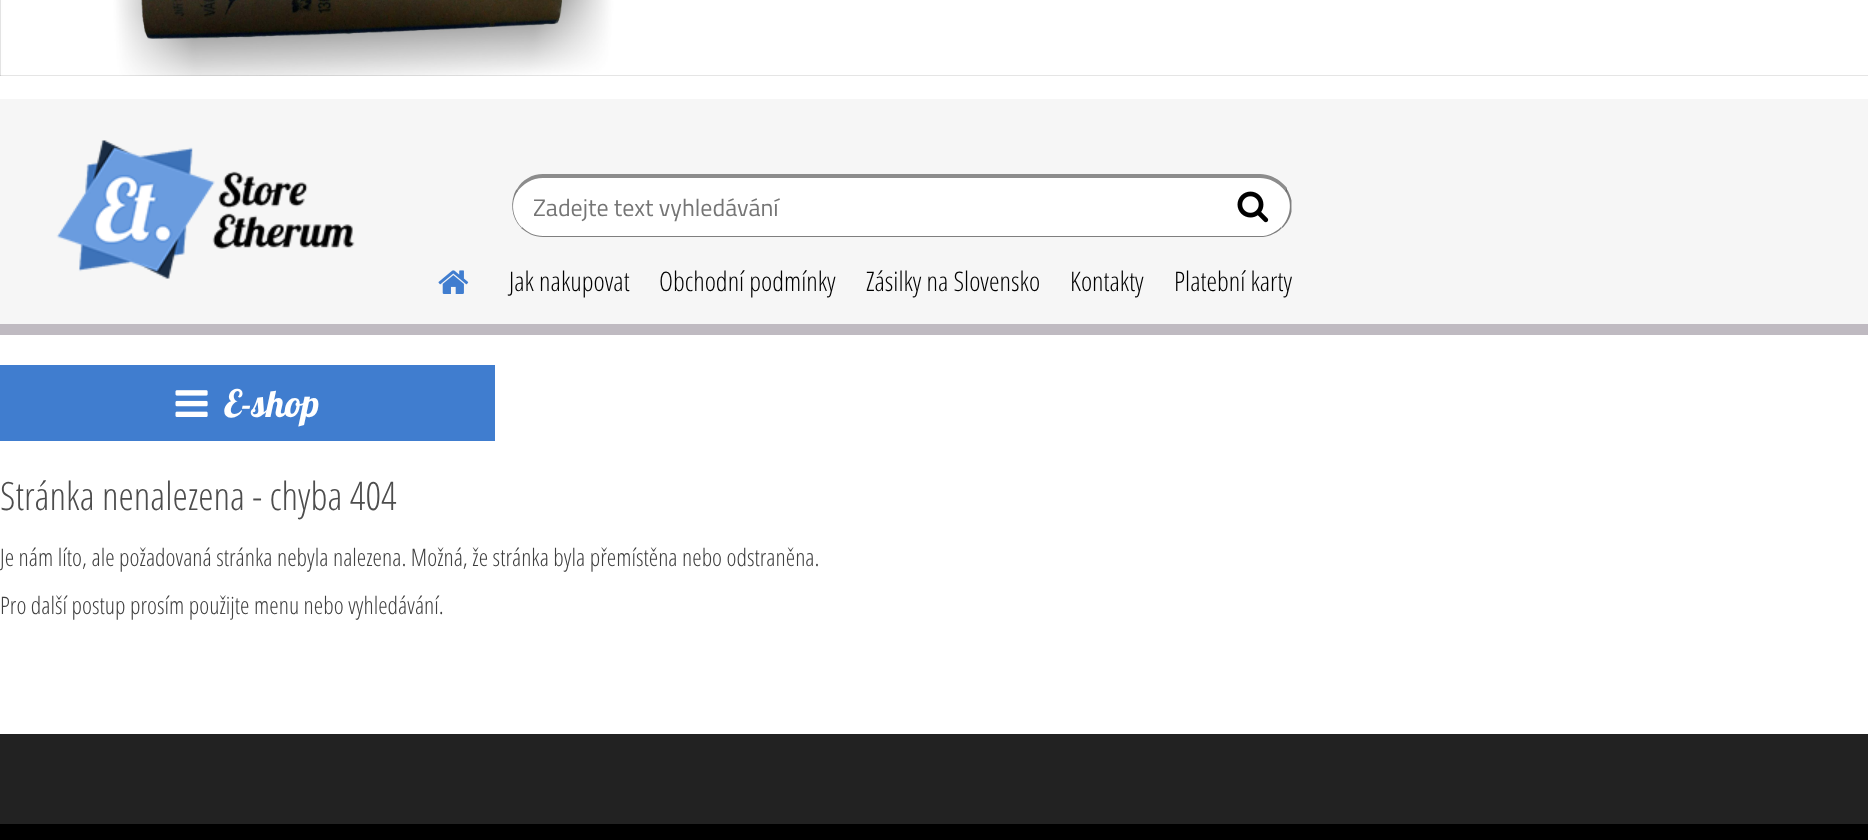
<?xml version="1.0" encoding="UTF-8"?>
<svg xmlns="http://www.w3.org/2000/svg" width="1868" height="840">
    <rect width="100%" height="100%" fill="#FFFFFF"/>
    <image x="0" y="0" width="1868" height="76" href="img_01.png"/>
    <rect x="0" y="99" width="1868" height="225" fill="#F6F6F6"/>
    <rect x="0" y="324" width="1868" height="11" fill="#BFBAC1"/>
    <image x="56" y="140" width="299" height="139" href="img_02.png"/>
    <path d="M 543.5 174 H 1223 V 237 H 543.5 C 526 237 512 223 512 205.5 C 512 188 526 174 543.5 174 Z" fill="#FFFFFF"/>
    <path d="M 543 174 H 1222 V 178 H 543 C 532 178 523 184 517 192 V 189 C 522 180 532 174 543 174 Z" fill="#8C8C8C"/>
    <path d="M 543 237 H 1222 V 236 H 543 C 534 236 527 232 522 227 L 521 228 C 527 233 534 237 543 237 Z" fill="#000000" fill-opacity="0.5"/>
    <path d="M 521.5 227 L 521 227.5 C 511 217.5 509.5 201.5 516.5 189 L 517.5 191.5 C 510 202.5 512.5 217.5 521.5 227 Z" fill="#000000" fill-opacity="0.5"/>
    <text x="533" y="216" font-family="Titillium Web" font-size="24" fill="#757575">Zadejte text vyhledávání</text>
    <path d="M 1223 174 H 1260.5 C 1278 174 1292 188 1292 205.5 C 1292 223 1278 237 1260.5 237 H 1223 Z" fill="#FFFFFF"/>
    <path d="M 1222 174 H 1260 C 1271 174 1281 180 1287 188 L 1286 192 C 1280 184 1271 178 1260 178 H 1222 Z" fill="#8C8C8C"/>
    <path d="M 1281.5 227 C 1290.5 217.5 1293 202.5 1285.5 191.5 L 1286.5 188.5 C 1289 192 1290.5 196 1291.5 200.5 V 211.5 C 1290.5 217.5 1287 223.5 1282.5 228 Z" fill="#000000" fill-opacity="0.5"/>
    <path d="M 1222 236 H 1260 C 1269 236 1276 232 1281 227 L 1282 228 C 1276 234 1268 237 1260 237 H 1222 Z" fill="#000000" fill-opacity="0.5"/>
    <image x="1237" y="191" width="32" height="32" href="img_03.png"/>
    <image x="438" y="270" width="31" height="24" href="img_04.png"/>
    <text x="509" y="291" font-family="Open Sans Condensed" font-size="27" font-weight="300" fill="#000000">Jak nakupovat</text>
    <text x="659" y="291" font-family="Open Sans Condensed" font-size="27" font-weight="300" fill="#000000">Obchodní podmínky</text>
    <text x="866" y="291" font-family="Open Sans Condensed" font-size="27" font-weight="300" fill="#000000">Zásilky na Slovensko</text>
    <text x="1070" y="291" font-family="Open Sans Condensed" font-size="27" font-weight="300" fill="#000000">Kontakty</text>
    <text x="1174" y="291" font-family="Open Sans Condensed" font-size="27" font-weight="300" fill="#000000">Platební karty</text>
    <rect x="0" y="365" width="495" height="76" fill="#407DCF"/>
    <image x="175" y="390" width="33" height="27" href="img_05.png"/>
    <text x="224" y="417" font-family="Lobster" font-size="37.5" fill="#FFFFFF">E-shop</text>
    <text x="0" y="510" font-family="Open Sans Condensed" font-size="39" font-weight="300" fill="#4D4D4D">Stránka nenalezena - chyba 404</text>
    <text x="0" y="566" font-family="Open Sans Condensed" font-size="24" font-weight="300" fill="#3F3F3F">Je nám líto, ale požadovaná stránka nebyla nalezena. Možná, že stránka byla přemístěna nebo odstraněna.</text>
    <text x="0" y="614" font-family="Open Sans Condensed" font-size="24" font-weight="300" fill="#3F3F3F">Pro další postup prosím použijte menu nebo vyhledávání.</text>
    <rect x="0" y="734" width="1868" height="90" fill="#222222"/>
    <rect x="0" y="824" width="1868" height="16" fill="#000000"/>
</svg>
